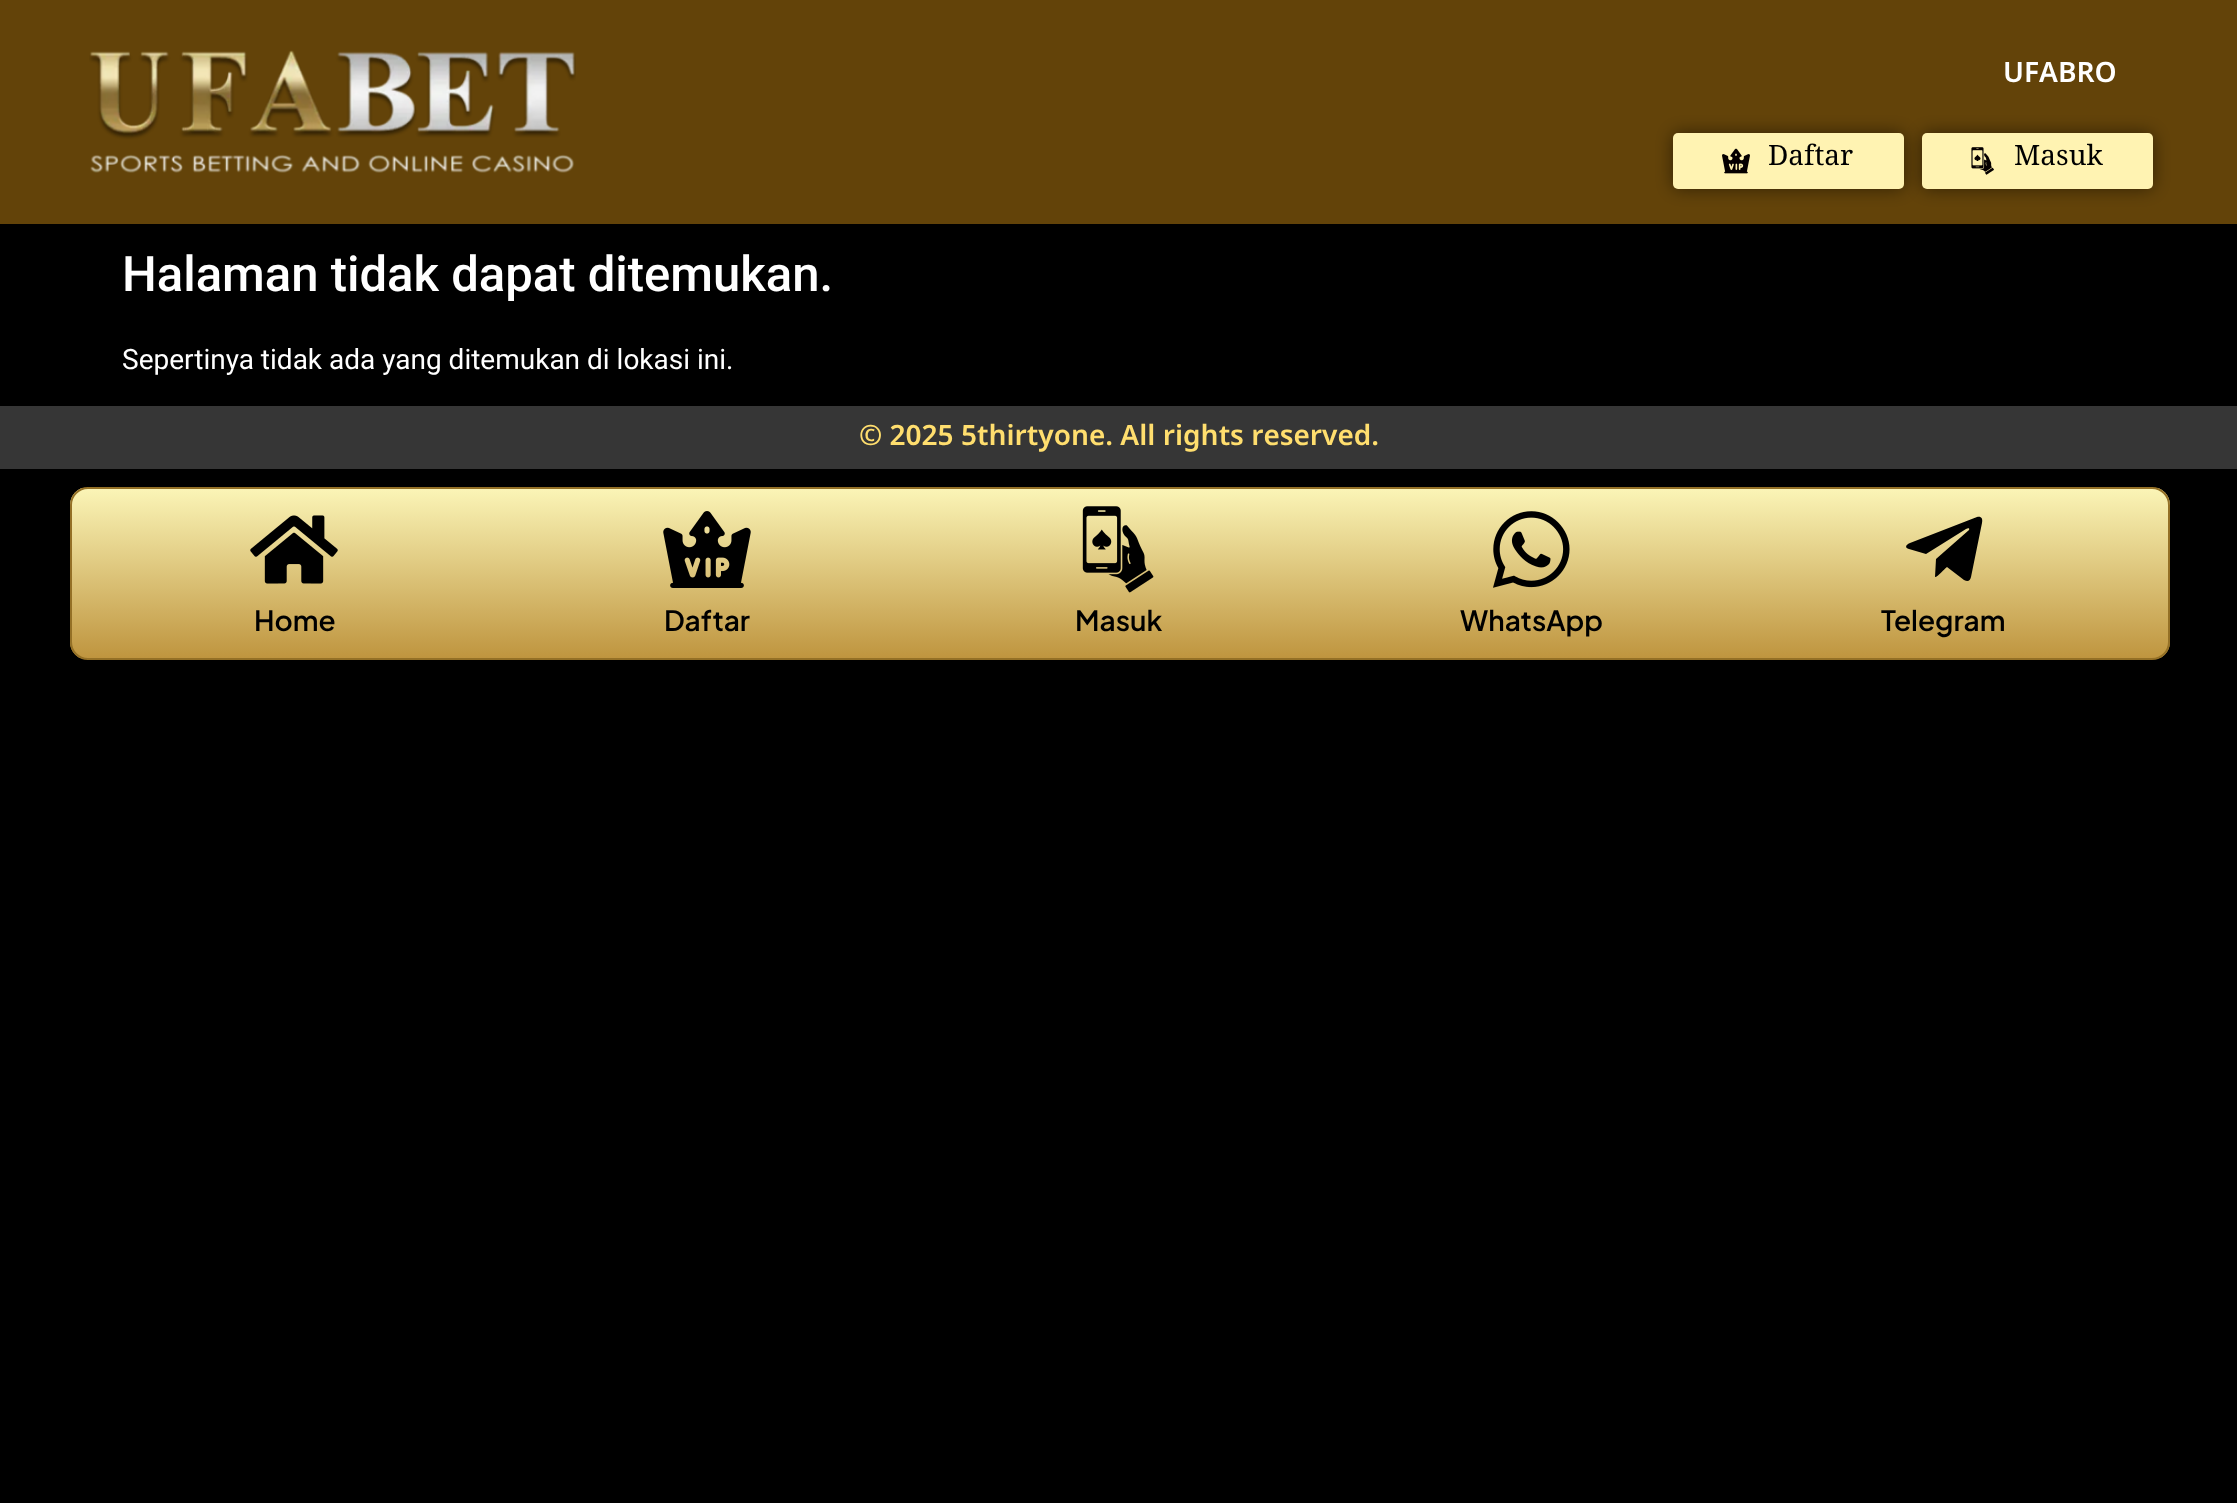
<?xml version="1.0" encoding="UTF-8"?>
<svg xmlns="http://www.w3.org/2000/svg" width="2237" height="1503">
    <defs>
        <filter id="blur1" x="-50%" y="-200%" width="200%" height="500%"><feGaussianBlur stdDeviation="9"/></filter>
        <clipPath id="clip1"><rect x="70" y="487" width="2100" height="173" rx="18"/></clipPath>
        <linearGradient id="g1" gradientUnits="userSpaceOnUse" x1="1120" y1="488" x2="1120" y2="658"><stop offset="0" stop-color="#FBF5B7"/><stop offset="1" stop-color="#BF953F"/></linearGradient>
    </defs>
    <rect width="100%" height="100%" fill="#000000"/>
    <rect x="0" y="0" width="2237" height="224" fill="#634309"/>
    <image x="89" y="50" width="487" height="123" href="img_01.png"/>
    <text x="2003" y="82" font-family="Noto Sans Balinese" font-size="28" font-weight="600" fill="#FFFFFF">UFABRO</text>
    <rect x="1673" y="133" width="231" height="56" rx="5" fill="#000000" fill-opacity="0.5" filter="url(#blur1)"/>
    <rect x="1673" y="133" width="231" height="56" rx="5" fill="#FFF3B2"/>
    <image x="1722" y="148" width="28" height="26" href="img_02.png"/>
    <text x="1768" y="165" font-family="Noto Serif Balinese" font-size="28" fill="#000000">Daftar</text>
    <rect x="1922" y="133" width="231" height="56" rx="5" fill="#000000" fill-opacity="0.5" filter="url(#blur1)"/>
    <rect x="1922" y="133" width="231" height="56" rx="5" fill="#FFF3B2"/>
    <image x="1971" y="147" width="23" height="28" href="img_03.png"/>
    <text x="2014" y="165" font-family="Noto Serif Balinese" font-size="28" fill="#000000">Masuk</text>
    <text x="122" y="291" font-family="Roboto" font-size="49" font-weight="500" fill="#FFFFFF">Halaman tidak dapat ditemukan.</text>
    <text x="122" y="369" font-family="Roboto" font-size="28" fill="#FFFFFF">Sepertinya tidak ada yang ditemukan di lokasi ini.</text>
    <rect x="0" y="406" width="2237" height="63" fill="#363636"/>
    <text x="859" y="445" font-family="Noto Sans Balinese" font-size="28" font-weight="600" fill="#FFDE6E">© 2025 5thirtyone. All rights reserved.</text>
    <g clip-path="url(#clip1)">
        <rect x="70" y="488" width="2100" height="170" fill="url(#g1)"/>
    </g>
    <rect x="71" y="488" width="2098" height="171" rx="17" fill="none" stroke="#947026" stroke-width="2"/>
    <image x="250" y="515" width="88" height="69" href="img_04.png"/>
    <text x="254" y="631" font-family="Plus Jakarta Sans" font-size="28" font-weight="600" fill="#000000">Home</text>
    <image x="663" y="511" width="88" height="77" href="img_05.png"/>
    <text x="664" y="631" font-family="Plus Jakarta Sans" font-size="28" font-weight="600" fill="#000000">Daftar</text>
    <image x="1082" y="506" width="72" height="87" href="img_06.png"/>
    <text x="1075" y="631" font-family="Plus Jakarta Sans" font-size="28" font-weight="600" fill="#000000">Masuk</text>
    <image x="1493" y="511" width="77" height="77" href="img_07.png"/>
    <text x="1460" y="631" font-family="Plus Jakarta Sans" font-size="28" font-weight="600" fill="#000000">WhatsApp</text>
    <path d="M 1982 523 L 1971 577 C 1970 581 1968 582 1964 580 L 1947 567 C 1944 569 1938 577 1935 577 L 1936 559 L 1969 530 C 1970 528 1968 528 1966 529 L 1926 554 L 1909 549 C 1905 548 1905 545 1910 543 L 1977 517 C 1981 516 1983 518 1982 523 Z" fill="#000000"/>
    <text x="1881" y="631" font-family="Plus Jakarta Sans" font-size="28" font-weight="600" fill="#000000">Telegram</text>
</svg>
